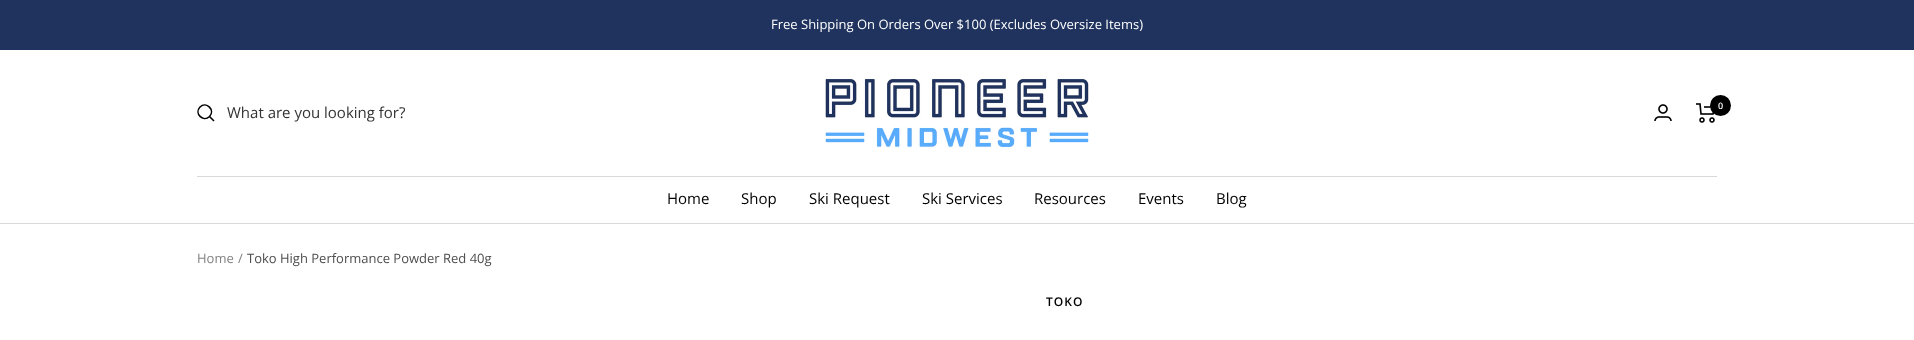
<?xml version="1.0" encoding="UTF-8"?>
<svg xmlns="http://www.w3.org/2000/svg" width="1914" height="340">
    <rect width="100%" height="100%" fill="#FFFFFF"/>
    <rect x="0" y="0" width="1914" height="50" fill="#1F335E"/>
    <text x="771" y="29" font-family="Open Sans" font-size="13" fill="#FFFFFF">Free Shipping On Orders Over $100 (Excludes Oversize Items)</text>
    <rect x="0" y="223" width="1914" height="1" fill="#D9D9D9"/>
    <path d="M 209.5 116.5 C 215.5 110 206.5 101 200 107 C 194 113.5 203 122.5 209.5 116.5 Z M 209.5 116.5 L 214 121" fill="none" stroke="#000000" stroke-width="1.6"/>
    <text x="227" y="118" font-family="Open Sans" font-size="15" fill="#333333">What are you looking for?</text>
    <image x="825" y="79" width="264" height="70" href="img_01.png"/>
    <image x="1654" y="104" width="18" height="17" href="img_02.png"/>
    <image x="1696" y="103" width="19" height="20" href="img_03.png"/>
    <circle cx="1720.5" cy="105.5" r="10.5" fill="#000000"/>
    <text x="1718" y="109" font-family="Open Sans" font-size="9" font-weight="600" fill="#FFFFFF">0</text>
    <rect x="197" y="176" width="1520" height="1" fill="#D9D9D9"/>
    <text x="667" y="204" font-family="Open Sans" font-size="15" fill="#000000">Home</text>
    <text x="741" y="204" font-family="Open Sans" font-size="15" fill="#000000">Shop</text>
    <text x="809" y="204" font-family="Open Sans" font-size="15" fill="#000000">Ski Request</text>
    <text x="922" y="204" font-family="Open Sans" font-size="15" fill="#000000">Ski Services</text>
    <text x="1034" y="204" font-family="Open Sans" font-size="15" fill="#000000">Resources</text>
    <text x="1138" y="204" font-family="Open Sans" font-size="15" fill="#000000">Events</text>
    <text x="1216" y="204" font-family="Open Sans" font-size="15" fill="#000000">Blog</text>
    <text x="197" y="263" font-family="Open Sans" font-size="13" fill="#828282">Home</text>
    <text x="238" y="263" font-family="Open Sans" font-size="13" fill="#828282">/</text>
    <text x="247" y="263" font-family="Open Sans" font-size="13" fill="#4D4D4D">Toko High Performance Powder Red 40g</text>
    <text x="1046" y="306" font-family="Open Sans" font-size="12" font-weight="600" letter-spacing="1" fill="#000000">TOKO</text>
</svg>
